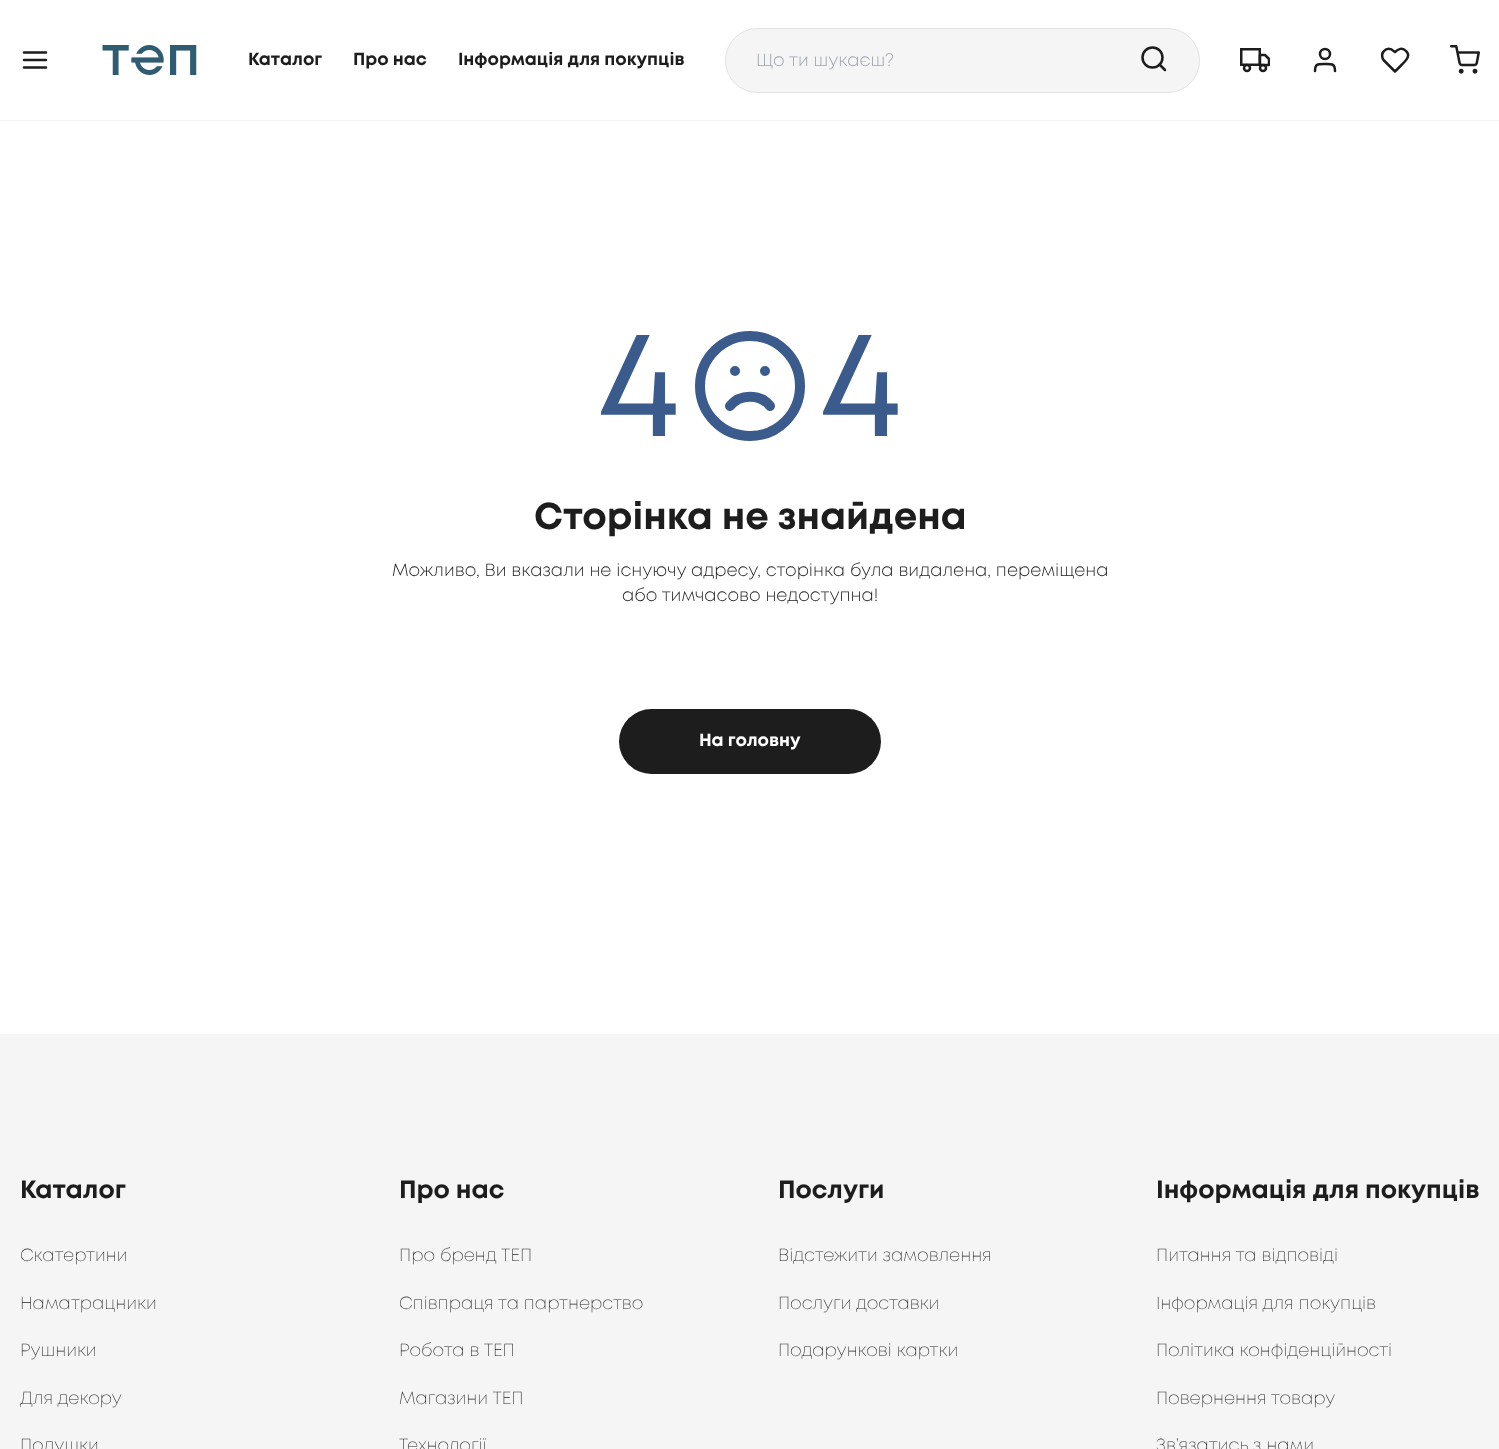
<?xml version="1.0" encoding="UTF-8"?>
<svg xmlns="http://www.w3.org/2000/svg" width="1499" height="1449">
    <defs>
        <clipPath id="clip1"><rect x="1240" y="45" width="30" height="30"/></clipPath>
    </defs>
    <rect width="100%" height="100%" fill="#FFFFFF"/>
    <rect x="0" y="120" width="1499" height="1" fill="#F5F5F5"/>
    <path d="M 24 60 H 46 M 24 52.5 H 46 M 24 67.5 H 46" fill="none" stroke="#1D1D1D" stroke-width="2.5" stroke-linecap="round" stroke-linejoin="round"/>
    <image x="102" y="45" width="95" height="30" href="img_01.png"/>
    <text x="248" y="65" font-family="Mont" font-size="17.5" font-weight="700" fill="#1D1D1D">Каталог</text>
    <text x="353" y="65" font-family="Mont" font-size="17.5" font-weight="700" fill="#1D1D1D">Про нас</text>
    <text x="458" y="65" font-family="Mont" font-size="17.5" font-weight="700" fill="#1D1D1D">Інформація для покупців</text>
    <rect x="725" y="28" width="475" height="65" rx="32.5" fill="#F5F5F5"/>
    <rect x="725.5" y="28.5" width="474" height="64" rx="32" fill="none" stroke="#999999" stroke-opacity="0.2"/>
    <text x="756" y="66" font-family="Mont" font-size="17.5" font-weight="300" fill="#9CA3AF">Що ти шукаєш?</text>
    <circle cx="1152.5" cy="57.5" r="10" fill="none" stroke="#1D1D1D" stroke-width="2.5"/>
    <path d="M 1165 70 L 1159.5 64.5" fill="none" stroke="#1D1D1D" stroke-width="2.5" stroke-linecap="round" stroke-linejoin="round"/>
    <rect x="1241.25" y="49.25" width="18.5" height="15.5" fill="none" stroke="#1D1D1D" stroke-width="2.5"/>
    <g clip-path="url(#clip1)">
        <path d="M 1260 55 H 1265 L 1269 59 V 65 H 1260 Z" fill="none" stroke="#1D1D1D" stroke-width="2.5" stroke-linecap="round" stroke-linejoin="round"/>
    </g>
    <circle cx="1247" cy="68" r="3" fill="none" stroke="#1D1D1D" stroke-width="2.5"/>
    <circle cx="1263" cy="68" r="3" fill="none" stroke="#1D1D1D" stroke-width="2.5"/>
    <path d="M 1335 71 C 1335 63.5 1332 64 1325 64 C 1318 64 1315 63.5 1315 71" fill="none" stroke="#1D1D1D" stroke-width="2.5" stroke-linecap="round" stroke-linejoin="round"/>
    <circle cx="1325" cy="54" r="5" fill="none" stroke="#1D1D1D" stroke-width="2.5"/>
    <path d="M 1406 51 C 1402.5 47 1398 49 1395 52 L 1393.5 51 C 1391 48 1386.5 48 1384 51 C 1381.5 53.5 1381.5 58 1384 60.5 L 1395 71.5 L 1401.5 65 C 1405 61.5 1411.5 56 1406 51 Z" fill="none" stroke="#1D1D1D" stroke-width="2.5" stroke-linecap="round" stroke-linejoin="round"/>
    <image x="1450" y="45" width="30" height="29" href="img_02.png"/>
    <text x="598" y="436" font-family="Mont" font-size="152" fill="#3B5B8C">4</text>
    <circle cx="750" cy="386" r="50" fill="none" stroke="#3B5B8C" stroke-width="10"/>
    <path d="M 770 406 C 760.5 393.5 739.5 393.5 730 406 M 735 371 H 735 M 765 371 H 765" fill="none" stroke="#3B5B8C" stroke-width="10" stroke-linecap="round" stroke-linejoin="round"/>
    <text x="820" y="436" font-family="Mont" font-size="152" fill="#3B5B8C">4</text>
    <text x="534" y="529" font-family="Mont" font-size="37.5" font-weight="700" fill="#1D1D1D">Сторінка не знайдена</text>
    <text x="392" y="576" font-family="Mont" font-size="17.5" font-weight="300" fill="#1D1D1D">Можливо, Ви вказали не існуючу адресу, сторінка була видалена, переміщена</text>
    <text x="622" y="601" font-family="Mont" font-size="17.5" font-weight="300" fill="#1D1D1D">або тимчасово недоступна!</text>
    <rect x="619" y="709" width="262" height="65" rx="32.5" fill="#1D1D1D"/>
    <text x="699" y="746" font-family="Mont" font-size="17.5" font-weight="700" fill="#FFFFFF">На головну</text>
    <rect x="0" y="1034" width="1499" height="415" fill="#F5F5F5"/>
    <text x="20" y="1198" font-family="Mont" font-size="25" font-weight="700" fill="#1D1D1D">Каталог</text>
    <text x="20" y="1261" font-family="Mont" font-size="17.5" font-weight="200" fill="#1D1D1D">Скатертини</text>
    <text x="20" y="1309" font-family="Mont" font-size="17.5" font-weight="200" fill="#1D1D1D">Наматрацники</text>
    <text x="20" y="1356" font-family="Mont" font-size="17.5" font-weight="200" fill="#1D1D1D">Рушники</text>
    <text x="20" y="1404" font-family="Mont" font-size="17.5" font-weight="200" fill="#1D1D1D">Для декору</text>
    <text x="20" y="1451" font-family="Mont" font-size="17.5" font-weight="200" fill="#1D1D1D">Подушки</text>
    <text x="399" y="1198" font-family="Mont" font-size="25" font-weight="700" fill="#1D1D1D">Про нас</text>
    <text x="399" y="1261" font-family="Mont" font-size="17.5" font-weight="200" fill="#1D1D1D">Про бренд ТЕП</text>
    <text x="399" y="1309" font-family="Mont" font-size="17.5" font-weight="200" fill="#1D1D1D">Співпраця та партнерство</text>
    <text x="399" y="1356" font-family="Mont" font-size="17.5" font-weight="200" fill="#1D1D1D">Робота в ТЕП</text>
    <text x="399" y="1404" font-family="Mont" font-size="17.5" font-weight="200" fill="#1D1D1D">Магазини ТЕП</text>
    <text x="399" y="1451" font-family="Mont" font-size="17.5" font-weight="200" fill="#1D1D1D">Технології</text>
    <text x="778" y="1198" font-family="Mont" font-size="25" font-weight="700" fill="#1D1D1D">Послуги</text>
    <text x="778" y="1261" font-family="Mont" font-size="17.5" font-weight="200" fill="#1D1D1D">Відстежити замовлення</text>
    <text x="778" y="1309" font-family="Mont" font-size="17.5" font-weight="200" fill="#1D1D1D">Послуги доставки</text>
    <text x="778" y="1356" font-family="Mont" font-size="17.5" font-weight="200" fill="#1D1D1D">Подарункові картки</text>
    <text x="1156" y="1198" font-family="Mont" font-size="25" font-weight="700" fill="#1D1D1D">Інформація для покупців</text>
    <text x="1156" y="1261" font-family="Mont" font-size="17.5" font-weight="200" fill="#1D1D1D">Питання та відповіді</text>
    <text x="1156" y="1309" font-family="Mont" font-size="17.5" font-weight="200" fill="#1D1D1D">Інформація для покупців</text>
    <text x="1156" y="1356" font-family="Mont" font-size="17.5" font-weight="200" fill="#1D1D1D">Політика конфіденційності</text>
    <text x="1156" y="1404" font-family="Mont" font-size="17.5" font-weight="200" fill="#1D1D1D">Повернення товару</text>
    <text x="1156" y="1451" font-family="Mont" font-size="17.5" font-weight="200" fill="#1D1D1D">Зв’язатись з нами</text>
</svg>
